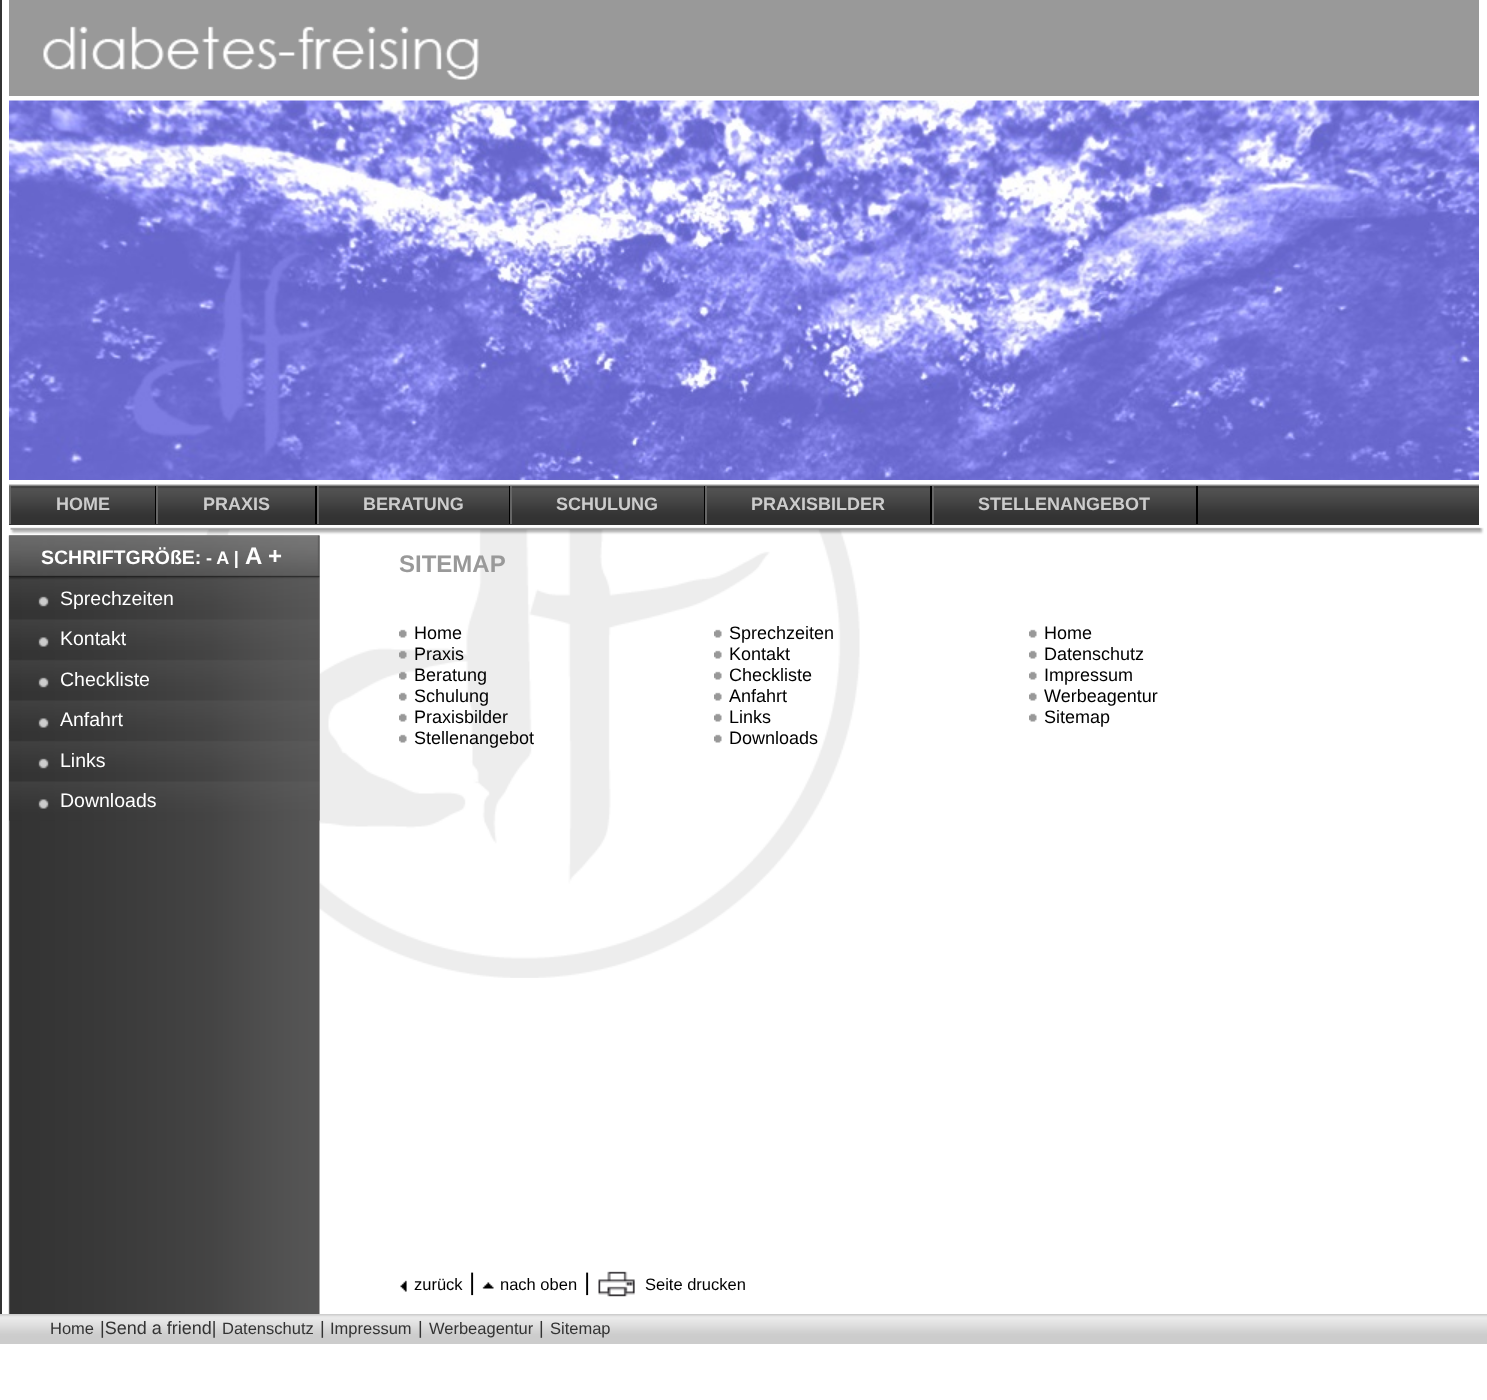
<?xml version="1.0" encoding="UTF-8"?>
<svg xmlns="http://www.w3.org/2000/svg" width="1487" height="1400">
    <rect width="100%" height="100%" fill="#FFFFFF"/>
    <image x="10" y="527" width="1474" height="451" href="img_01.png"/>
    <rect x="0" y="0" width="2" height="1314" fill="#333333"/>
    <rect x="9" y="0" width="1470" height="96" fill="#999999"/>
    <image x="43" y="26" width="436" height="54" href="img_02.png"/>
    <image x="9" y="100" width="1470" height="380" href="img_03.png"/>
    <image x="9" y="484" width="1470" height="41" href="img_04.png"/>
    <text x="56" y="510" font-family="Liberation Sans" font-size="18" font-weight="700" fill="#CCCCCC">HOME</text>
    <rect x="155" y="486" width="1" height="38" fill="#000000"/>
    <rect x="9" y="486" width="2" height="38" fill="#666666"/>
    <text x="203" y="510" font-family="Liberation Sans" font-size="18" font-weight="700" fill="#CCCCCC">PRAXIS</text>
    <rect x="315" y="486" width="2" height="38" fill="#000000"/>
    <rect x="156" y="486" width="2" height="38" fill="#666666"/>
    <text x="363" y="510" font-family="Liberation Sans" font-size="18" font-weight="700" fill="#CCCCCC">BERATUNG</text>
    <rect x="509" y="486" width="1" height="38" fill="#000000"/>
    <rect x="317" y="486" width="2" height="38" fill="#666666"/>
    <text x="556" y="510" font-family="Liberation Sans" font-size="18" font-weight="700" fill="#CCCCCC">SCHULUNG</text>
    <rect x="704" y="486" width="1" height="38" fill="#000000"/>
    <rect x="510" y="486" width="2" height="38" fill="#666666"/>
    <text x="751" y="510" font-family="Liberation Sans" font-size="18" font-weight="700" fill="#CCCCCC">PRAXISBILDER</text>
    <rect x="930" y="486" width="2" height="38" fill="#000000"/>
    <rect x="705" y="486" width="2" height="38" fill="#666666"/>
    <text x="978" y="510" font-family="Liberation Sans" font-size="18" font-weight="700" fill="#CCCCCC">STELLENANGEBOT</text>
    <rect x="1196" y="486" width="2" height="38" fill="#000000"/>
    <rect x="932" y="486" width="2" height="38" fill="#666666"/>
    <image x="8" y="535" width="312" height="779" href="img_05.png"/>
    <image x="9" y="535" width="311" height="43" href="img_06.png"/>
    <text x="41" y="564" font-family="Liberation Sans" font-size="19.5" font-weight="700" fill="#FFFFFF">SCHRIFTGRÖßE:</text>
    <text x="206" y="564" font-family="Liberation Sans" font-size="18" font-weight="700" fill="#FFFFFF">- A |</text>
    <text x="245" y="564" font-family="Liberation Sans" font-size="24" font-weight="700" fill="#FFFFFF">A +</text>
    <image x="9" y="577" width="311" height="41" href="img_07.png"/>
    <text x="60" y="605" font-family="Liberation Sans" font-size="19.5" fill="#FFFFFF">Sprechzeiten</text>
    <image x="9" y="618" width="311" height="41" href="img_08.png"/>
    <text x="60" y="645" font-family="Liberation Sans" font-size="19.5" fill="#FFFFFF">Kontakt</text>
    <image x="9" y="658" width="311" height="41" href="img_09.png"/>
    <text x="60" y="686" font-family="Liberation Sans" font-size="19.5" fill="#FFFFFF">Checkliste</text>
    <image x="9" y="699" width="311" height="41" href="img_10.png"/>
    <text x="60" y="726" font-family="Liberation Sans" font-size="19.5" fill="#FFFFFF">Anfahrt</text>
    <image x="9" y="739" width="311" height="41" href="img_11.png"/>
    <text x="60" y="767" font-family="Liberation Sans" font-size="19.5" fill="#FFFFFF">Links</text>
    <image x="9" y="780" width="311" height="41" href="img_10.png"/>
    <text x="60" y="807" font-family="Liberation Sans" font-size="19.5" fill="#FFFFFF">Downloads</text>
    <text x="399" y="572" font-family="Liberation Sans" font-size="24" font-weight="700" fill="#999999">SITEMAP</text>
    <image x="399" y="629" width="8" height="9" href="img_12.png"/>
    <text x="414" y="639" font-family="Liberation Sans" font-size="18" fill="#000000">Home</text>
    <image x="399" y="650" width="8" height="9" href="img_13.png"/>
    <text x="414" y="660" font-family="Liberation Sans" font-size="18" fill="#000000">Praxis</text>
    <image x="399" y="671" width="8" height="9" href="img_14.png"/>
    <text x="414" y="681" font-family="Liberation Sans" font-size="18" fill="#000000">Beratung</text>
    <image x="399" y="692" width="8" height="9" href="img_12.png"/>
    <text x="414" y="702" font-family="Liberation Sans" font-size="18" fill="#000000">Schulung</text>
    <image x="399" y="713" width="8" height="9" href="img_12.png"/>
    <text x="414" y="723" font-family="Liberation Sans" font-size="18" fill="#000000">Praxisbilder</text>
    <image x="399" y="734" width="8" height="9" href="img_12.png"/>
    <text x="414" y="744" font-family="Liberation Sans" font-size="18" fill="#000000">Stellenangebot</text>
    <image x="714" y="629" width="8" height="9" href="img_12.png"/>
    <text x="729" y="639" font-family="Liberation Sans" font-size="18" fill="#000000">Sprechzeiten</text>
    <image x="714" y="650" width="8" height="9" href="img_12.png"/>
    <text x="729" y="660" font-family="Liberation Sans" font-size="18" fill="#000000">Kontakt</text>
    <image x="714" y="671" width="8" height="9" href="img_12.png"/>
    <text x="729" y="681" font-family="Liberation Sans" font-size="18" fill="#000000">Checkliste</text>
    <image x="714" y="692" width="8" height="9" href="img_12.png"/>
    <text x="729" y="702" font-family="Liberation Sans" font-size="18" fill="#000000">Anfahrt</text>
    <image x="714" y="713" width="8" height="9" href="img_12.png"/>
    <text x="729" y="723" font-family="Liberation Sans" font-size="18" fill="#000000">Links</text>
    <image x="714" y="734" width="8" height="9" href="img_12.png"/>
    <text x="729" y="744" font-family="Liberation Sans" font-size="18" fill="#000000">Downloads</text>
    <image x="1029" y="629" width="8" height="9" href="img_12.png"/>
    <text x="1044" y="639" font-family="Liberation Sans" font-size="18" fill="#000000">Home</text>
    <image x="1029" y="650" width="8" height="9" href="img_12.png"/>
    <text x="1044" y="660" font-family="Liberation Sans" font-size="18" fill="#000000">Datenschutz</text>
    <image x="1029" y="671" width="8" height="9" href="img_12.png"/>
    <text x="1044" y="681" font-family="Liberation Sans" font-size="18" fill="#000000">Impressum</text>
    <image x="1029" y="692" width="8" height="9" href="img_12.png"/>
    <text x="1044" y="702" font-family="Liberation Sans" font-size="18" fill="#000000">Werbeagentur</text>
    <image x="1029" y="713" width="8" height="9" href="img_12.png"/>
    <text x="1044" y="723" font-family="Liberation Sans" font-size="18" fill="#000000">Sitemap</text>
    <image x="400" y="1280" width="7" height="12" href="img_15.png"/>
    <text x="414" y="1290" font-family="Liberation Sans" font-size="16.5" fill="#000000">zurück</text>
    <text x="469" y="1290" font-family="Liberation Sans" font-size="24" fill="#000000">|</text>
    <image x="482" y="1282" width="12" height="7" href="img_16.png"/>
    <text x="500" y="1290" font-family="Liberation Sans" font-size="16.5" fill="#000000">nach oben</text>
    <text x="584" y="1290" font-family="Liberation Sans" font-size="24" fill="#000000">|</text>
    <image x="598" y="1271" width="37" height="26" href="img_17.png"/>
    <text x="645" y="1290" font-family="Liberation Sans" font-size="16.5" fill="#000000">Seite drucken</text>
    <image x="0" y="1314" width="1487" height="30" href="img_18.png"/>
    <text x="50" y="1334" font-family="Liberation Sans" font-size="16.5" fill="#333333">Home</text>
    <text x="100" y="1334" font-family="Liberation Sans" font-size="18" fill="#333333">|Send a friend|</text>
    <text x="222" y="1334" font-family="Liberation Sans" font-size="16.5" fill="#333333">Datenschutz</text>
    <text x="320" y="1334" font-family="Liberation Sans" font-size="18" fill="#333333">|</text>
    <text x="330" y="1334" font-family="Liberation Sans" font-size="16.5" fill="#333333">Impressum</text>
    <text x="418" y="1334" font-family="Liberation Sans" font-size="18" fill="#333333">|</text>
    <text x="429" y="1334" font-family="Liberation Sans" font-size="16.5" fill="#333333">Werbeagentur</text>
    <text x="539" y="1334" font-family="Liberation Sans" font-size="18" fill="#333333">|</text>
    <text x="550" y="1334" font-family="Liberation Sans" font-size="16.5" fill="#333333">Sitemap</text>
</svg>
